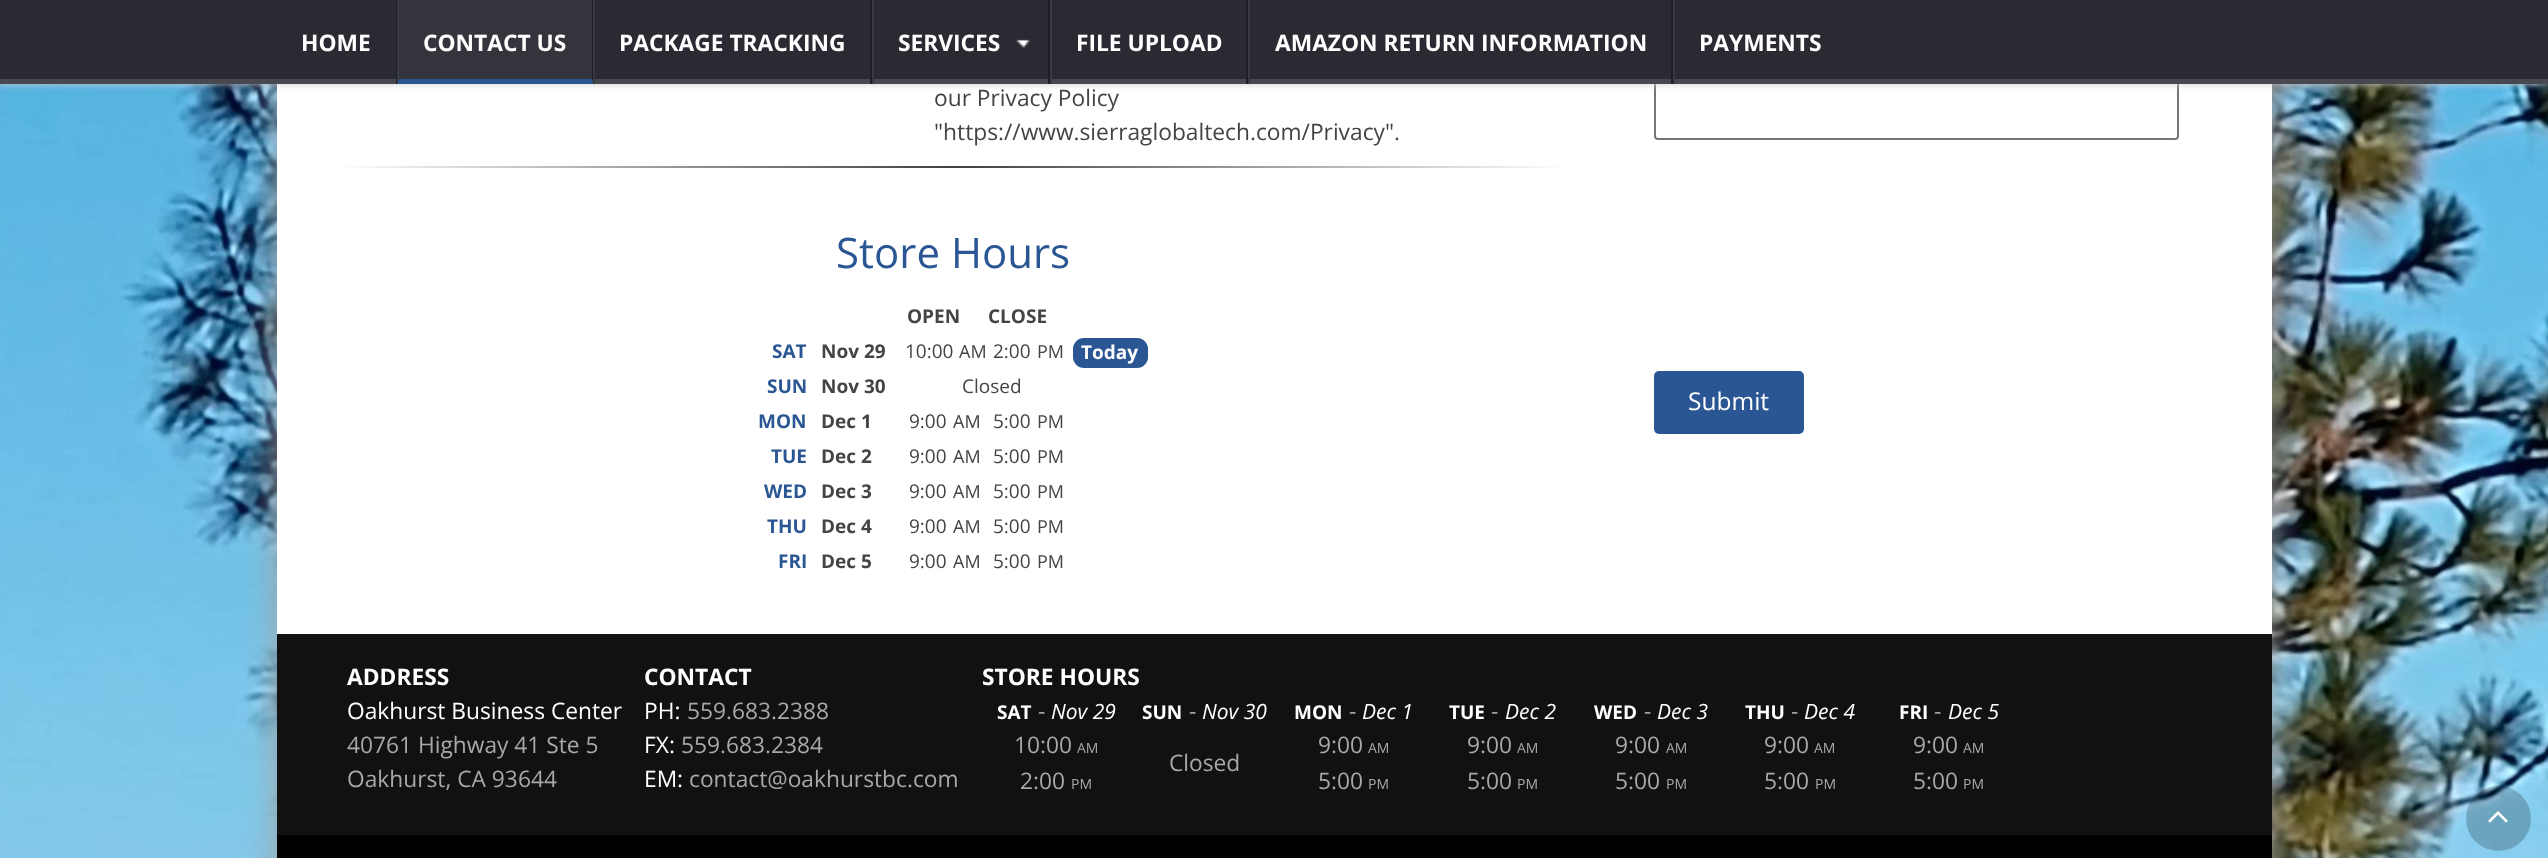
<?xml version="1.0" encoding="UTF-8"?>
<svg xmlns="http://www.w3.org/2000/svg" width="2548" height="858">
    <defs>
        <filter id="blur1" x="-50%" y="-200%" width="200%" height="500%"><feGaussianBlur stdDeviation="17.5"/></filter>
        <filter id="blur2" x="-50%" y="-200%" width="200%" height="500%"><feGaussianBlur stdDeviation="3.5"/></filter>
        <linearGradient id="g1" gradientUnits="userSpaceOnUse" x1="338" y1="167" x2="1568" y2="167"><stop offset="0" stop-color="#FFFFFF"/><stop offset="0.5" stop-color="#404040"/><stop offset="1" stop-color="#FFFFFF"/></linearGradient>
    </defs>
    <rect width="100%" height="100%" fill="#FFFFFF"/>
    <image x="0" y="84" width="2548" height="774" href="img_01.png"/>
    <rect x="277" y="-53" width="1995" height="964" fill="#A3A3A3" filter="url(#blur1)"/>
    <rect x="277" y="84" width="1995" height="550" fill="#FFFFFF"/>
    <rect x="1655" y="-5" width="523" height="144" rx="3" fill="none" stroke="#767676" stroke-width="2"/>
    <rect x="0" y="0" width="2548" height="84" fill="#CCCCCC" filter="url(#blur2)"/>
    <rect x="0" y="0" width="2548" height="79" fill="#292A32"/>
    <rect x="0" y="79" width="2548" height="5" fill="#484950"/>
    <rect x="396" y="0" width="2" height="84" fill="#1E1F25"/>
    <text x="301" y="51" font-family="Open Sans" font-size="22.75" font-weight="700" fill="#FFFFFF">HOME</text>
    <rect x="397" y="0" width="196" height="84" fill="#FFFFFF" fill-opacity="0.05"/>
    <path d="M 593 0 V 84 L 592 79 V 0 Z" fill="#1E1F25"/>
    <path d="M 593 84 H 397 L 399 79 H 592 Z" fill="#2A5794"/>
    <path d="M 397 84 V 0 H 399 V 79 Z" fill="#393A41"/>
    <text x="423" y="51" font-family="Open Sans" font-size="22.75" font-weight="700" fill="#FFFFFF">CONTACT US</text>
    <rect x="870" y="0" width="2" height="84" fill="#1E1F25"/>
    <rect x="593" y="0" width="2" height="84" fill="#393A41"/>
    <text x="619" y="51" font-family="Open Sans" font-size="22.75" font-weight="700" fill="#FFFFFF">PACKAGE TRACKING</text>
    <rect x="1048" y="0" width="2" height="84" fill="#1E1F25"/>
    <rect x="872" y="0" width="2" height="84" fill="#393A41"/>
    <text x="898" y="51" font-family="Open Sans" font-size="22.75" font-weight="700" fill="#FFFFFF">SERVICES</text>
    <image x="1016" y="39" width="14" height="9" href="img_02.png"/>
    <rect x="1246" y="0" width="2" height="84" fill="#1E1F25"/>
    <rect x="1050" y="0" width="2" height="84" fill="#393A41"/>
    <text x="1076" y="51" font-family="Open Sans" font-size="22.75" font-weight="700" fill="#FFFFFF">FILE UPLOAD</text>
    <rect x="1671" y="0" width="2" height="84" fill="#1E1F25"/>
    <rect x="1248" y="0" width="2" height="84" fill="#393A41"/>
    <text x="1275" y="51" font-family="Open Sans" font-size="22.75" font-weight="700" fill="#FFFFFF">AMAZON RETURN INFORMATION</text>
    <rect x="1673" y="0" width="2" height="84" fill="#393A41"/>
    <text x="1699" y="51" font-family="Open Sans" font-size="22.75" font-weight="700" fill="#FFFFFF">PAYMENTS</text>
    <text font-family="Open Sans" font-size="22.75" fill="#444444">
        <tspan x="934" y="106">our Privacy Policy</tspan>
        <tspan x="934" y="140">"https://www.sierraglobaltech.com/Privacy".</tspan>
    </text>
    <rect x="338" y="166" width="1230" height="2" fill="url(#g1)"/>
    <text x="836" y="268" font-family="Open Sans" font-size="42" fill="#2A5794">Store Hours</text>
    <text x="907" y="323" font-family="Open Sans" font-size="19" font-weight="700" fill="#444444">OPEN</text>
    <text x="988" y="323" font-family="Open Sans" font-size="19" font-weight="700" fill="#444444">CLOSE</text>
    <text x="772" y="358" font-family="Open Sans" font-size="19" font-weight="700" fill="#2A5794">SAT</text>
    <text x="821" y="358" font-family="Open Sans" font-size="19" font-weight="700" fill="#444444">Nov 29</text>
    <text x="905" y="358" font-family="Open Sans" font-size="19" fill="#444444">10:00</text>
    <text x="959" y="358" font-family="Open Sans" font-size="18" fill="#444444">AM</text>
    <text x="993" y="358" font-family="Open Sans" font-size="19" fill="#444444">2:00</text>
    <text x="1037" y="358" font-family="Open Sans" font-size="18" fill="#444444">PM</text>
    <rect x="1073" y="338" width="75" height="30" rx="11" fill="#2A5794"/>
    <text x="1081" y="359" font-family="Open Sans" font-size="19" font-weight="700" fill="#FFFFFF">Today</text>
    <text x="767" y="393" font-family="Open Sans" font-size="19" font-weight="700" fill="#2A5794">SUN</text>
    <text x="821" y="393" font-family="Open Sans" font-size="19" font-weight="700" fill="#444444">Nov 30</text>
    <text x="962" y="393" font-family="Open Sans" font-size="19" fill="#444444">Closed</text>
    <text x="758" y="428" font-family="Open Sans" font-size="19" font-weight="700" fill="#2A5794">MON</text>
    <text x="821" y="428" font-family="Open Sans" font-size="19" font-weight="700" fill="#444444">Dec 1</text>
    <text x="909" y="428" font-family="Open Sans" font-size="19" fill="#444444">9:00</text>
    <text x="953" y="428" font-family="Open Sans" font-size="18" fill="#444444">AM</text>
    <text x="993" y="428" font-family="Open Sans" font-size="19" fill="#444444">5:00</text>
    <text x="1037" y="428" font-family="Open Sans" font-size="18" fill="#444444">PM</text>
    <text x="771" y="463" font-family="Open Sans" font-size="19" font-weight="700" fill="#2A5794">TUE</text>
    <text x="821" y="463" font-family="Open Sans" font-size="19" font-weight="700" fill="#444444">Dec 2</text>
    <text x="909" y="463" font-family="Open Sans" font-size="19" fill="#444444">9:00</text>
    <text x="953" y="463" font-family="Open Sans" font-size="18" fill="#444444">AM</text>
    <text x="993" y="463" font-family="Open Sans" font-size="19" fill="#444444">5:00</text>
    <text x="1037" y="463" font-family="Open Sans" font-size="18" fill="#444444">PM</text>
    <text x="764" y="498" font-family="Open Sans" font-size="19" font-weight="700" fill="#2A5794">WED</text>
    <text x="821" y="498" font-family="Open Sans" font-size="19" font-weight="700" fill="#444444">Dec 3</text>
    <text x="909" y="498" font-family="Open Sans" font-size="19" fill="#444444">9:00</text>
    <text x="953" y="498" font-family="Open Sans" font-size="18" fill="#444444">AM</text>
    <text x="993" y="498" font-family="Open Sans" font-size="19" fill="#444444">5:00</text>
    <text x="1037" y="498" font-family="Open Sans" font-size="18" fill="#444444">PM</text>
    <text x="767" y="533" font-family="Open Sans" font-size="19" font-weight="700" fill="#2A5794">THU</text>
    <text x="821" y="533" font-family="Open Sans" font-size="19" font-weight="700" fill="#444444">Dec 4</text>
    <text x="909" y="533" font-family="Open Sans" font-size="19" fill="#444444">9:00</text>
    <text x="953" y="533" font-family="Open Sans" font-size="18" fill="#444444">AM</text>
    <text x="993" y="533" font-family="Open Sans" font-size="19" fill="#444444">5:00</text>
    <text x="1037" y="533" font-family="Open Sans" font-size="18" fill="#444444">PM</text>
    <text x="778" y="568" font-family="Open Sans" font-size="19" font-weight="700" fill="#2A5794">FRI</text>
    <text x="821" y="568" font-family="Open Sans" font-size="19" font-weight="700" fill="#444444">Dec 5</text>
    <text x="909" y="568" font-family="Open Sans" font-size="19" fill="#444444">9:00</text>
    <text x="953" y="568" font-family="Open Sans" font-size="18" fill="#444444">AM</text>
    <text x="993" y="568" font-family="Open Sans" font-size="19" fill="#444444">5:00</text>
    <text x="1037" y="568" font-family="Open Sans" font-size="18" fill="#444444">PM</text>
    <rect x="1654" y="371" width="150" height="63" rx="5" fill="#2A5794"/>
    <text x="1688" y="410" font-family="Open Sans" font-size="24.5" fill="#FFFFFF">Submit</text>
    <rect x="277" y="634" width="1995" height="201" fill="#111111"/>
    <text x="347" y="685" font-family="Open Sans" font-size="22.75" font-weight="700" fill="#FFFFFF">ADDRESS</text>
    <text x="347" y="719" font-family="Open Sans" font-size="22.75" fill="#FFFFFF">Oakhurst Business Center</text>
    <text font-family="Open Sans" font-size="22.75" fill="#A8A8A8">
        <tspan x="347" y="753">40761 Highway 41 Ste 5</tspan>
        <tspan x="347" y="787">Oakhurst, CA 93644</tspan>
    </text>
    <text x="644" y="685" font-family="Open Sans" font-size="22.75" font-weight="700" fill="#FFFFFF">CONTACT</text>
    <text x="644" y="719" font-family="Open Sans" font-size="22.75" fill="#FFFFFF">PH:</text>
    <text x="687" y="719" font-family="Open Sans" font-size="22.75" fill="#A8A8A8">559.683.2388</text>
    <text x="644" y="753" font-family="Open Sans" font-size="22.75" fill="#FFFFFF">FX:</text>
    <text x="681" y="753" font-family="Open Sans" font-size="22.75" fill="#A8A8A8">559.683.2384</text>
    <text x="644" y="787" font-family="Open Sans" font-size="22.75" fill="#FFFFFF">EM:</text>
    <text x="689" y="787" font-family="Open Sans" font-size="22.75" fill="#A8A8A8">contact@oakhurstbc.com</text>
    <text x="982" y="685" font-family="Open Sans" font-size="22.75" font-weight="700" fill="#FFFFFF">STORE HOURS</text>
    <text x="997" y="719" font-family="Open Sans" font-size="19" font-weight="700" fill="#FFFFFF">SAT</text>
    <text x="1038" y="719" font-family="Open Sans" font-size="22.75" fill="#A8A8A8">-</text>
    <text x="1051" y="719" font-family="Open Sans" font-size="21" font-style="italic" fill="#FFFFFF">Nov 29</text>
    <text x="1014" y="753" font-family="Open Sans" font-size="22.75" fill="#A8A8A8">10:00</text>
    <text x="1077" y="753" font-family="Open Sans" font-size="14" fill="#A8A8A8">AM</text>
    <text x="1020" y="789" font-family="Open Sans" font-size="22.75" fill="#A8A8A8">2:00</text>
    <text x="1071" y="789" font-family="Open Sans" font-size="14" fill="#A8A8A8">PM</text>
    <text x="1142" y="719" font-family="Open Sans" font-size="19" font-weight="700" fill="#FFFFFF">SUN</text>
    <text x="1189" y="719" font-family="Open Sans" font-size="22.75" fill="#A8A8A8">-</text>
    <text x="1202" y="719" font-family="Open Sans" font-size="21" font-style="italic" fill="#FFFFFF">Nov 30</text>
    <text x="1169" y="771" font-family="Open Sans" font-size="22.75" fill="#A8A8A8">Closed</text>
    <text x="1294" y="719" font-family="Open Sans" font-size="19" font-weight="700" fill="#FFFFFF">MON</text>
    <text x="1349" y="719" font-family="Open Sans" font-size="22.75" fill="#A8A8A8">-</text>
    <text x="1362" y="719" font-family="Open Sans" font-size="21" font-style="italic" fill="#FFFFFF">Dec 1</text>
    <text x="1318" y="753" font-family="Open Sans" font-size="22.75" fill="#A8A8A8">9:00</text>
    <text x="1368" y="753" font-family="Open Sans" font-size="14" fill="#A8A8A8">AM</text>
    <text x="1318" y="789" font-family="Open Sans" font-size="22.75" fill="#A8A8A8">5:00</text>
    <text x="1368" y="789" font-family="Open Sans" font-size="14" fill="#A8A8A8">PM</text>
    <text x="1449" y="719" font-family="Open Sans" font-size="19" font-weight="700" fill="#FFFFFF">TUE</text>
    <text x="1491" y="719" font-family="Open Sans" font-size="22.75" fill="#A8A8A8">-</text>
    <text x="1505" y="719" font-family="Open Sans" font-size="21" font-style="italic" fill="#FFFFFF">Dec 2</text>
    <text x="1467" y="753" font-family="Open Sans" font-size="22.75" fill="#A8A8A8">9:00</text>
    <text x="1517" y="753" font-family="Open Sans" font-size="14" fill="#A8A8A8">AM</text>
    <text x="1467" y="789" font-family="Open Sans" font-size="22.75" fill="#A8A8A8">5:00</text>
    <text x="1517" y="789" font-family="Open Sans" font-size="14" fill="#A8A8A8">PM</text>
    <text x="1594" y="719" font-family="Open Sans" font-size="19" font-weight="700" fill="#FFFFFF">WED</text>
    <text x="1644" y="719" font-family="Open Sans" font-size="22.75" fill="#A8A8A8">-</text>
    <text x="1657" y="719" font-family="Open Sans" font-size="21" font-style="italic" fill="#FFFFFF">Dec 3</text>
    <text x="1615" y="753" font-family="Open Sans" font-size="22.75" fill="#A8A8A8">9:00</text>
    <text x="1666" y="753" font-family="Open Sans" font-size="14" fill="#A8A8A8">AM</text>
    <text x="1615" y="789" font-family="Open Sans" font-size="22.75" fill="#A8A8A8">5:00</text>
    <text x="1666" y="789" font-family="Open Sans" font-size="14" fill="#A8A8A8">PM</text>
    <text x="1745" y="719" font-family="Open Sans" font-size="19" font-weight="700" fill="#FFFFFF">THU</text>
    <text x="1791" y="719" font-family="Open Sans" font-size="22.75" fill="#A8A8A8">-</text>
    <text x="1804" y="719" font-family="Open Sans" font-size="21" font-style="italic" fill="#FFFFFF">Dec 4</text>
    <text x="1764" y="753" font-family="Open Sans" font-size="22.75" fill="#A8A8A8">9:00</text>
    <text x="1814" y="753" font-family="Open Sans" font-size="14" fill="#A8A8A8">AM</text>
    <text x="1764" y="789" font-family="Open Sans" font-size="22.75" fill="#A8A8A8">5:00</text>
    <text x="1815" y="789" font-family="Open Sans" font-size="14" fill="#A8A8A8">PM</text>
    <text x="1899" y="719" font-family="Open Sans" font-size="19" font-weight="700" fill="#FFFFFF">FRI</text>
    <text x="1934" y="719" font-family="Open Sans" font-size="22.75" fill="#A8A8A8">-</text>
    <text x="1948" y="719" font-family="Open Sans" font-size="21" font-style="italic" fill="#FFFFFF">Dec 5</text>
    <text x="1913" y="753" font-family="Open Sans" font-size="22.75" fill="#A8A8A8">9:00</text>
    <text x="1963" y="753" font-family="Open Sans" font-size="14" fill="#A8A8A8">AM</text>
    <text x="1913" y="789" font-family="Open Sans" font-size="22.75" fill="#A8A8A8">5:00</text>
    <text x="1963" y="789" font-family="Open Sans" font-size="14" fill="#A8A8A8">PM</text>
    <rect x="277" y="835" width="1995" height="23" fill="#000000"/>
    <circle cx="2498.5" cy="818.5" r="32.5" fill="#000000" fill-opacity="0.2"/>
    <image x="2488" y="811" width="20" height="12" href="img_03.png"/>
</svg>
